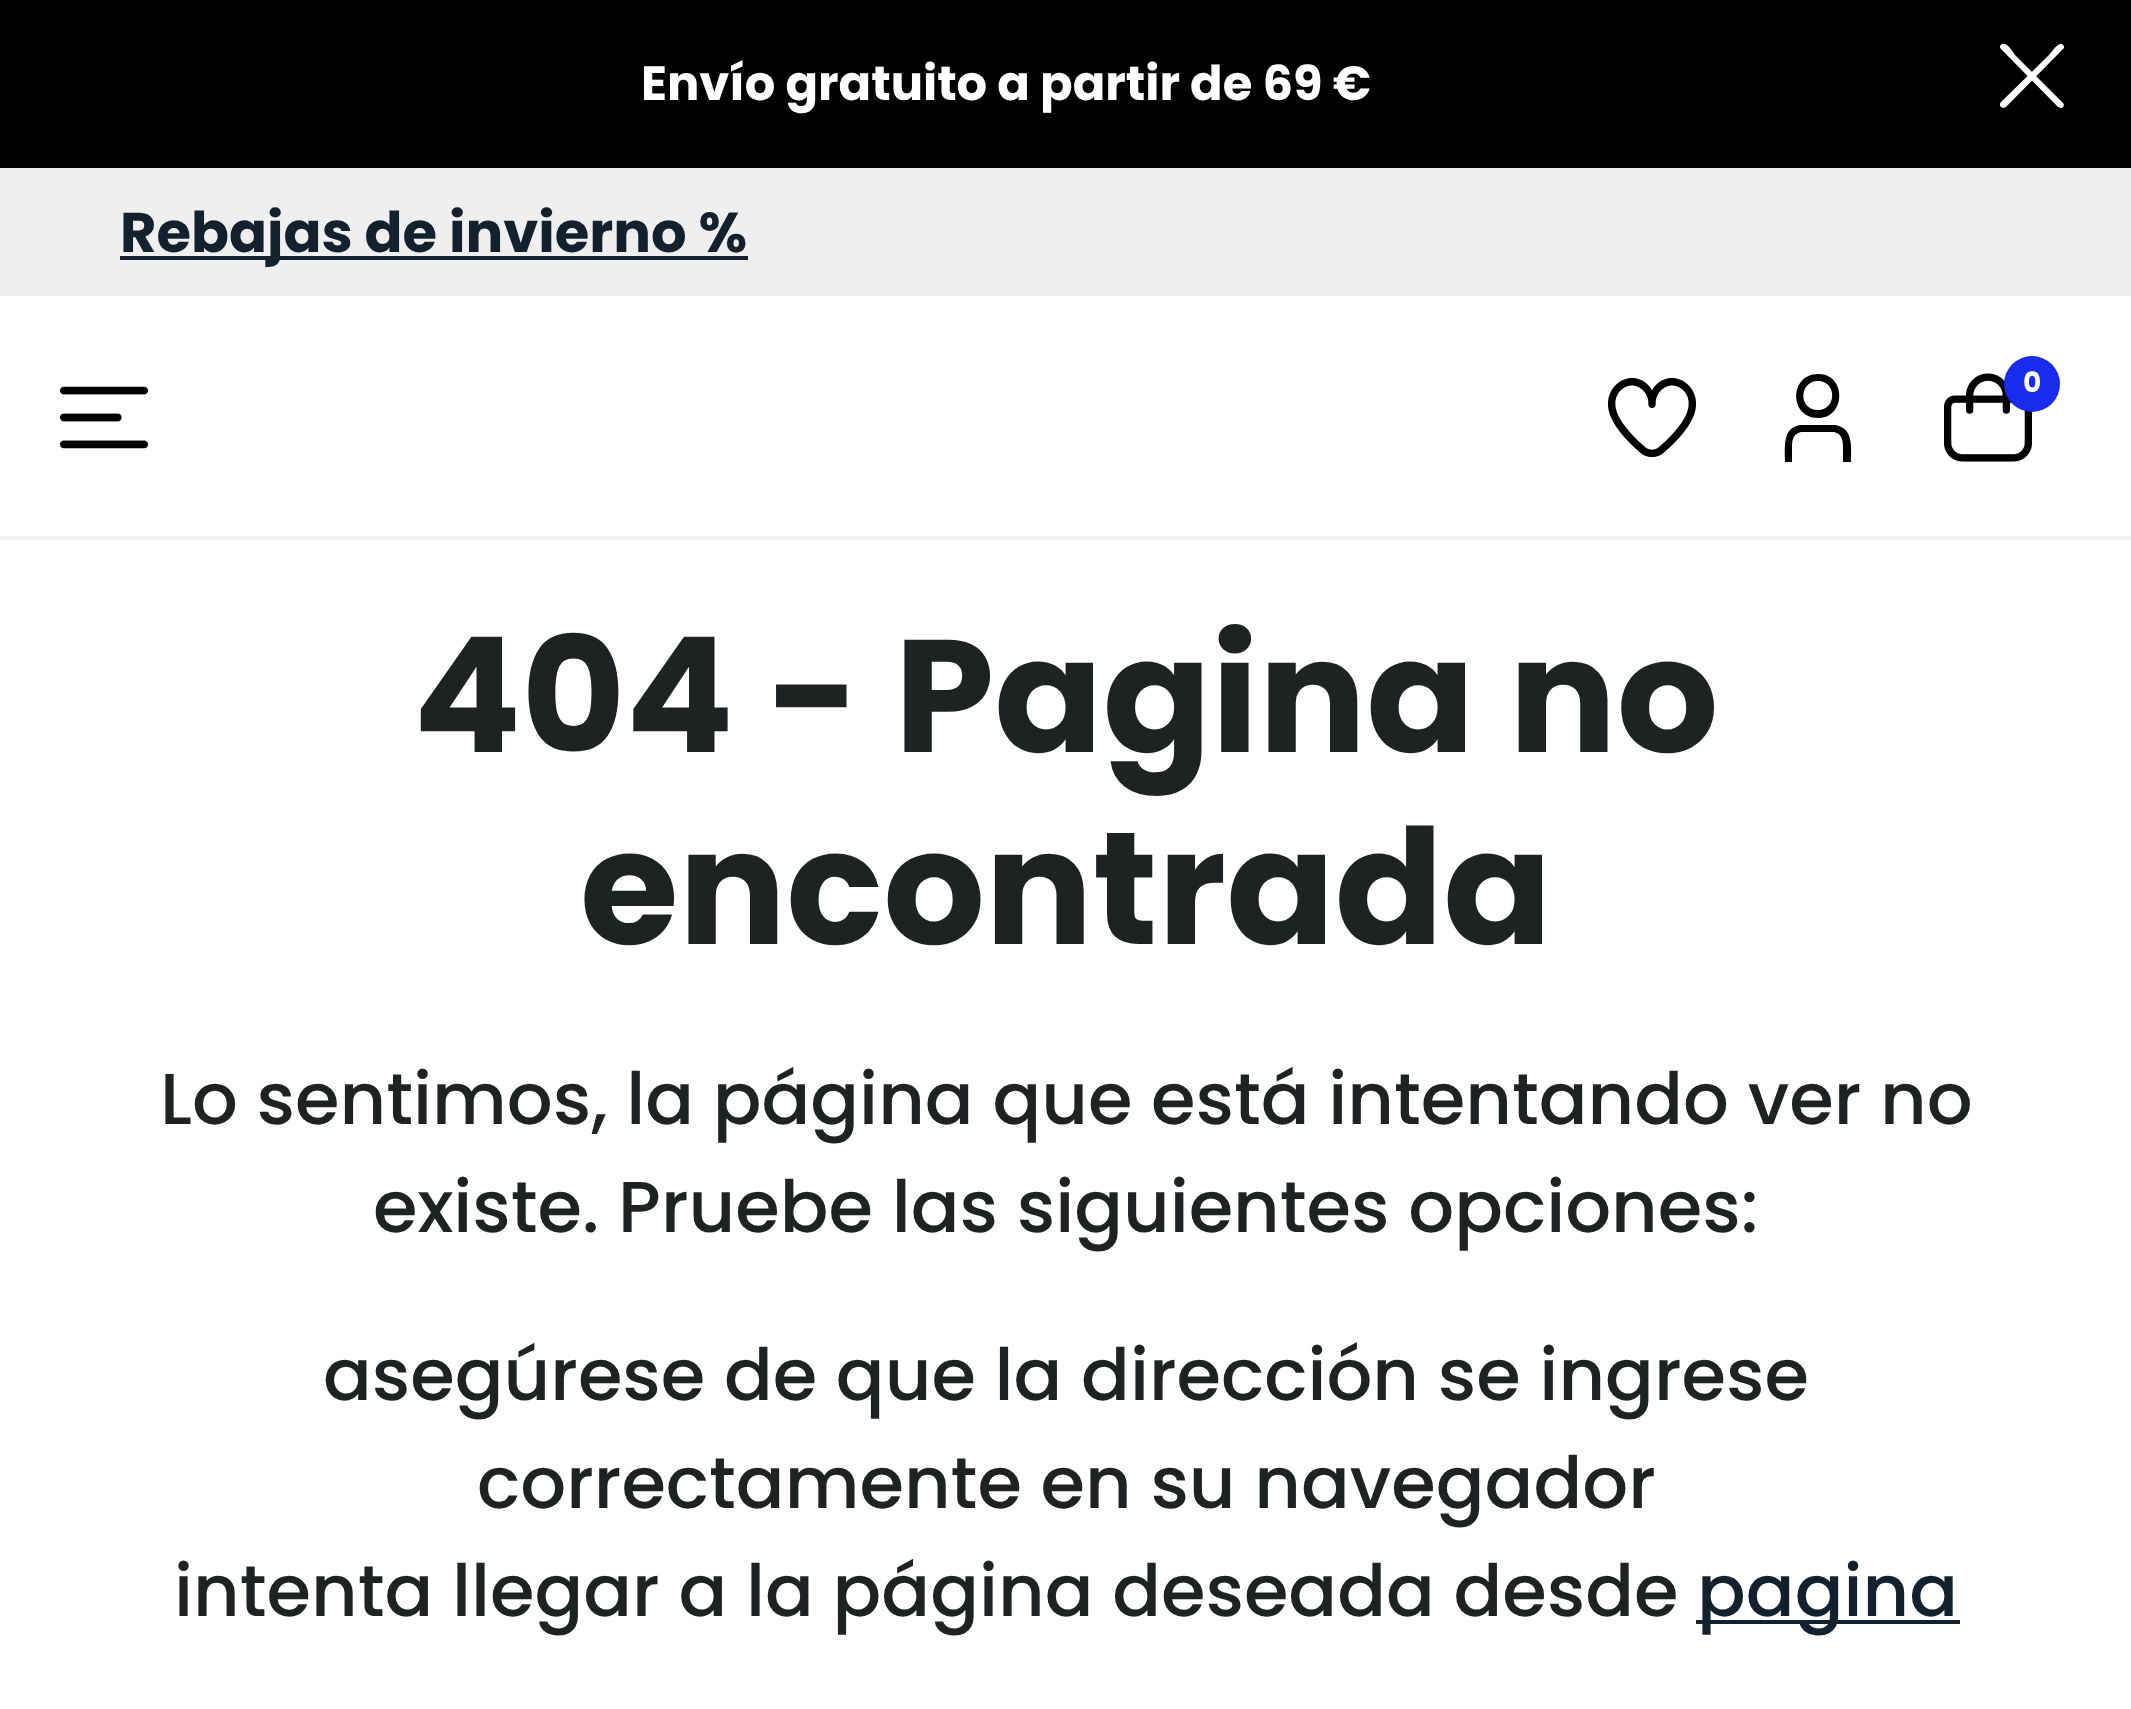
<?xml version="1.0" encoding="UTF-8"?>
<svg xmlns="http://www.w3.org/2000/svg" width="2131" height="1709">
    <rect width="100%" height="100%" fill="#FFFFFF"/>
    <rect x="0" y="0" width="2131" height="168" fill="#000000"/>
    <text x="641" y="100" font-family="Poppins" font-size="48" font-weight="700" fill="#FFFFFF">Envío gratuito a partir de 69 €</text>
    <path d="M 2003 108 C 2000 108 1999 104 2001 102 L 2049 55 C 2051 53 2058 42 2062 44 C 2064 45 2065 48 2063 49 L 2006 107 Z M 2061 108 L 2058 107 L 2001 49 C 1999 47 2000 45 2002 44 C 2007 42 2013 52 2015 55 L 2063 103 C 2065 105 2063 108 2061 108 Z" fill="#FFFFFF"/>
    <rect x="0" y="168" width="2131" height="128" fill="#EFEFEF"/>
    <rect x="120" y="256" width="628" height="4" fill="#13212E"/>
    <text x="120" y="252" font-family="Poppins" font-size="56" font-weight="700" fill="#13212E">Rebajas de invierno %</text>
    <rect x="0" y="536" width="2131" height="4" fill="#F2F2F2"/>
    <image x="1608" y="377" width="88" height="81" href="img_01.png"/>
    <path d="M 1851 462 H 1843 V 449 C 1843 442 1843 434 1834 432 H 1801 C 1792 434 1792 442 1792 449 V 462 H 1785 C 1785 448 1782 428 1800 425 H 1835 C 1854 428 1851 448 1851 462 Z M 1818 418 C 1789 418 1789 374 1818 374 C 1846 373 1847 418 1818 418 Z M 1818 381 C 1799 381 1798 410 1818 410 C 1837 410 1837 381 1818 381 Z" fill="#000000"/>
    <image x="1944" y="373" width="88" height="89" href="img_02.png"/>
    <circle cx="2032" cy="384" r="28" fill="#192CED"/>
    <text x="2023" y="392" font-family="Poppins" font-size="28" font-weight="700" fill="#FFFFFF">0</text>
    <image x="60" y="386" width="88" height="63" href="img_03.png"/>
    <text x="413" y="752" font-family="Poppins" font-size="160" font-weight="700" fill="#1E2223">404 - Pagina no</text>
    <text x="580" y="944" font-family="Poppins" font-size="160" font-weight="700" fill="#1E2223">encontrada</text>
    <text x="160" y="1124" font-family="Poppins" font-size="72" font-weight="500" fill="#1E2223">Lo sentimos, la página que está intentando ver no</text>
    <text x="373" y="1232" font-family="Poppins" font-size="72" font-weight="500" fill="#1E2223">existe. Pruebe las siguientes opciones:</text>
    <text x="323" y="1400" font-family="Poppins" font-size="72" font-weight="500" fill="#1E2223">asegúrese de que la dirección se ingrese</text>
    <text x="477" y="1508" font-family="Poppins" font-size="72" font-weight="500" fill="#1E2223">correctamente en su navegador</text>
    <text x="174" y="1616" font-family="Poppins" font-size="72" font-weight="500" fill="#1E2223">intenta llegar a la página deseada desde</text>
    <rect x="1696" y="1620" width="264" height="4" fill="#13212E"/>
    <text x="1697" y="1616" font-family="Poppins" font-size="72" font-weight="500" fill="#13212E">pagina</text>
</svg>
